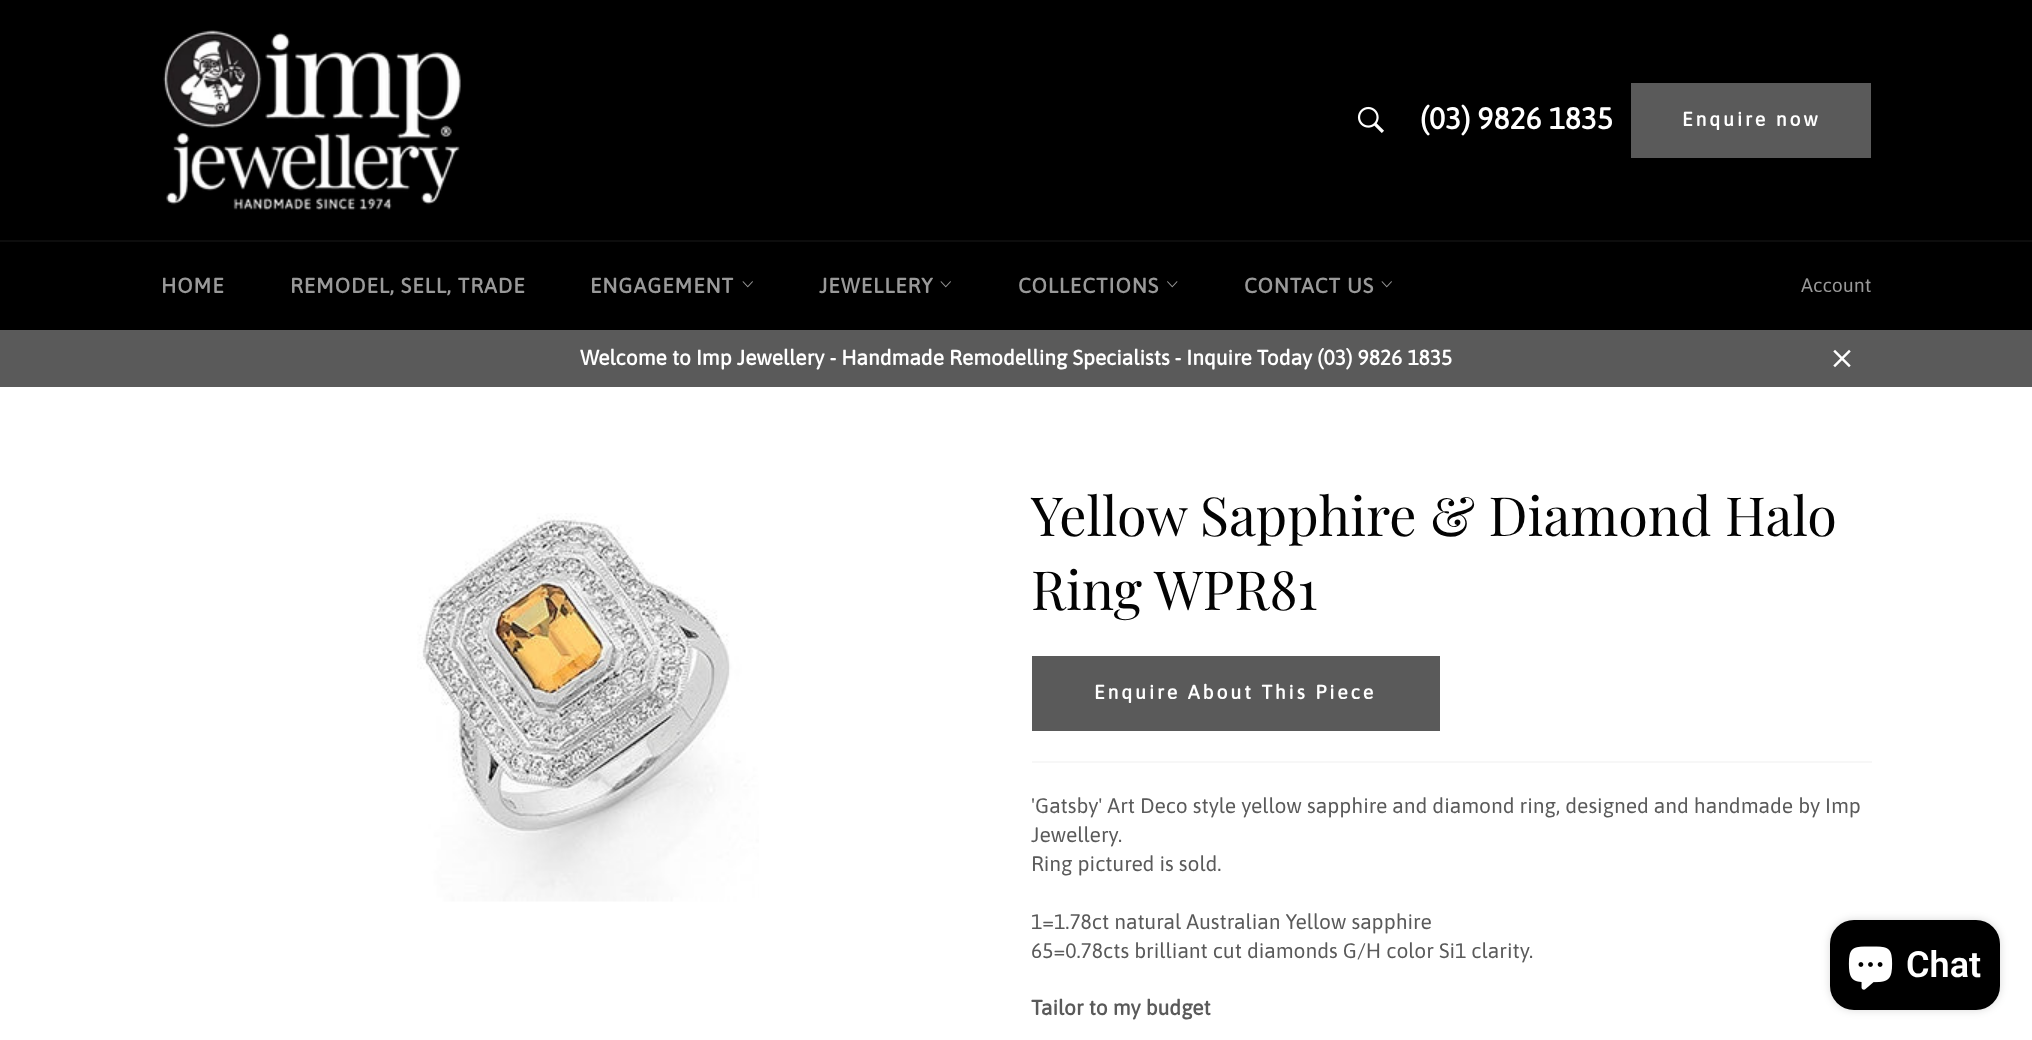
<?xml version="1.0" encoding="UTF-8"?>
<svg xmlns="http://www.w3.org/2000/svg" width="2032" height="1040">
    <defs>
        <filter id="blur1" x="-50%" y="-200%" width="200%" height="500%"><feGaussianBlur stdDeviation="4"/></filter>
    </defs>
    <rect width="100%" height="100%" fill="#000000"/>
    <image x="163" y="30" width="298" height="180" href="img_01.png"/>
    <image x="1357" y="106" width="27" height="27" href="img_02.png"/>
    <text x="1420" y="129" font-family="Asap" font-size="30" font-weight="700" fill="#FFFFFF">(03) 9826 1835</text>
    <rect x="1631" y="83" width="240" height="75" fill="#5A5A5A"/>
    <text x="1682" y="126" font-family="Asap" font-size="19.5" font-weight="700" letter-spacing="2.9" fill="#FFFFFF">Enquire now</text>
    <rect x="0" y="240" width="2032" height="2" fill="#0D0D0D"/>
    <text x="161" y="293" font-family="Asap" font-size="21" font-weight="700" letter-spacing="0.9" fill="#999999">HOME</text>
    <text x="290" y="293" font-family="Asap" font-size="21" font-weight="700" letter-spacing="0.9" fill="#999999">REMODEL, SELL, TRADE</text>
    <text x="590" y="293" font-family="Asap" font-size="21" font-weight="700" letter-spacing="0.9" fill="#999999">ENGAGEMENT</text>
    <image x="742" y="281" width="11" height="7" href="img_03.png"/>
    <text x="819" y="293" font-family="Asap" font-size="21" font-weight="700" letter-spacing="0.9" fill="#999999">JEWELLERY</text>
    <image x="940" y="281" width="11" height="7" href="img_03.png"/>
    <text x="1018" y="293" font-family="Asap" font-size="21" font-weight="700" letter-spacing="0.9" fill="#999999">COLLECTIONS</text>
    <image x="1167" y="281" width="11" height="7" href="img_04.png"/>
    <text x="1244" y="293" font-family="Asap" font-size="21" font-weight="700" letter-spacing="0.9" fill="#999999">CONTACT US</text>
    <image x="1381" y="281" width="11" height="7" href="img_03.png"/>
    <text x="1801" y="292" font-family="Asap" font-size="19.5" fill="#999999">Account</text>
    <rect x="0" y="330" width="2032" height="57" fill="#5A5A5A"/>
    <text x="580" y="365" font-family="Asap" font-size="21" font-weight="700" fill="#FFFFFF">Welcome to Imp Jewellery - Handmade Remodelling Specialists - Inquire Today (03) 9826 1835</text>
    <image x="1833" y="349" width="18" height="19" href="img_05.png"/>
    <rect x="0" y="387" width="2032" height="653" fill="#FFFFFF"/>
    <image x="417" y="513" width="342" height="389" href="img_06.png"/>
    <text font-family="Playfair Display" font-size="54" fill="#030303">
        <tspan x="1031" y="536">Yellow Sapphire &amp; Diamond Halo</tspan>
        <tspan x="1031" y="610">Ring</tspan>
    </text>
    <text x="1154" y="610" font-family="Playfair Display" font-size="54" fill="#030303">WPR81</text>
    <rect x="1032" y="656" width="408" height="75" fill="#5A5A5A"/>
    <text x="1094" y="699" font-family="Asap" font-size="19.5" font-weight="700" letter-spacing="2.9" fill="#FFFFFF">Enquire About This Piece</text>
    <rect x="1032" y="761" width="840" height="2" fill="#F7F7F7"/>
    <text font-family="Asap" font-size="21" fill="#5A5A5A">
        <tspan x="1031" y="813">'Gatsby' Art Deco style yellow sapphire and diamond ring, designed and handmade by Imp</tspan>
        <tspan x="1031" y="842">Jewellery.</tspan>
        <tspan x="1031" y="871">Ring pictured is sold.</tspan>
    </text>
    <text font-family="Asap" font-size="21" fill="#5A5A5A">
        <tspan x="1031" y="929">1=1.78ct natural Australian Yellow sapphire</tspan>
        <tspan x="1031" y="958">65=0.78cts brilliant cut diamonds G/H color Si1 clarity.</tspan>
    </text>
    <text x="1031" y="1015" font-family="Asap" font-size="21" font-weight="700" fill="#5A5A5A">Tailor to my budget</text>
    <rect x="1830" y="920" width="170" height="90" rx="24" fill="#000000" fill-opacity="0.15" filter="url(#blur1)"/>
    <rect x="1830" y="920" width="170" height="90" rx="24" fill="#000000"/>
    <image x="1848" y="946" width="45" height="44" href="img_07.png"/>
    <text x="1906" y="977" font-family="Roboto" font-size="36" font-weight="600" fill="#FFFFFF">Chat</text>
</svg>
